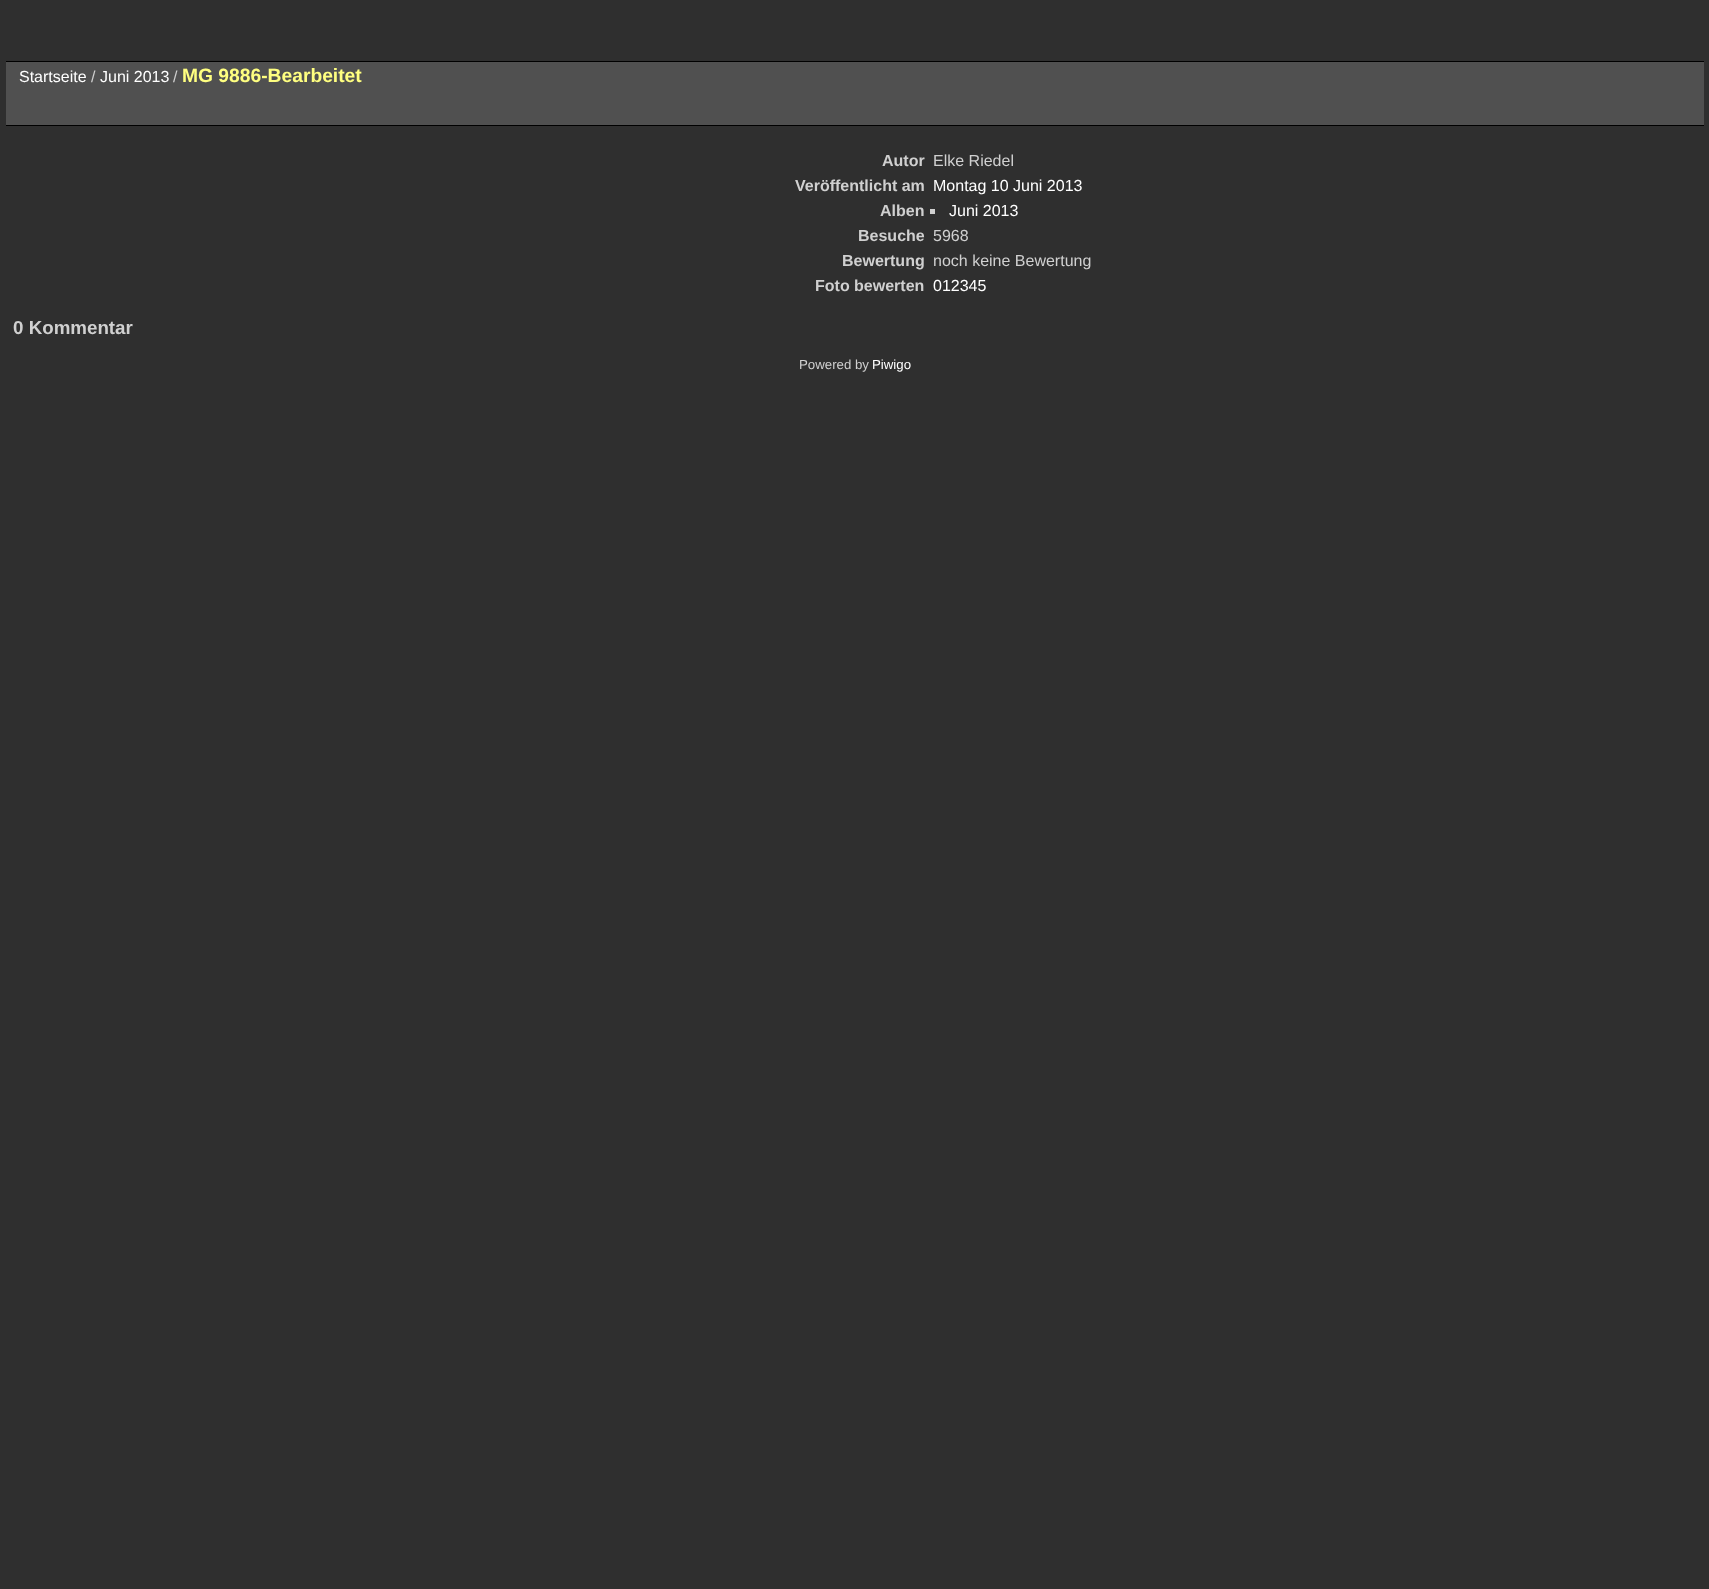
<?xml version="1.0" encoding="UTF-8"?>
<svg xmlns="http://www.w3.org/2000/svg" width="1709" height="1589">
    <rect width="100%" height="100%" fill="#2F2F2F"/>
    <rect x="6" y="62" width="1698" height="63" fill="#505050"/>
    <rect x="6" y="125" width="1698" height="1" fill="#000000"/>
    <rect x="6" y="61" width="1698" height="1" fill="#000000"/>
    <text x="19" y="82" font-family="Liberation Sans" font-size="16" fill="#FFFFFF">Startseite</text>
    <text x="91" y="82" font-family="Liberation Sans" font-size="16" fill="#D0D0D0">/</text>
    <text x="100" y="82" font-family="Liberation Sans" font-size="16" fill="#FFFFFF">Juni 2013</text>
    <text x="173" y="82" font-family="Liberation Sans" font-size="16" fill="#D0D0D0">/</text>
    <text x="182" y="82" font-family="Liberation Sans" font-size="19.25" font-weight="700" fill="#FFFF80">MG 9886-Bearbeitet</text>
    <text x="882" y="166" font-family="Liberation Sans" font-size="16" font-weight="700" fill="#D0D0D0">Autor</text>
    <text x="933" y="166" font-family="Liberation Sans" font-size="16" fill="#D0D0D0">Elke Riedel</text>
    <text x="795" y="191" font-family="Liberation Sans" font-size="16" font-weight="700" fill="#D0D0D0">Veröffentlicht am</text>
    <text x="933" y="191" font-family="Liberation Sans" font-size="16" fill="#FFFFFF">Montag 10 Juni 2013</text>
    <text x="880" y="216" font-family="Liberation Sans" font-size="16" font-weight="700" fill="#D0D0D0">Alben</text>
    <rect x="930" y="209" width="5" height="5" fill="#D0D0D0"/>
    <text x="949" y="216" font-family="Liberation Sans" font-size="16" fill="#FFFFFF">Juni 2013</text>
    <text x="858" y="241" font-family="Liberation Sans" font-size="16" font-weight="700" fill="#D0D0D0">Besuche</text>
    <text x="933" y="241" font-family="Liberation Sans" font-size="16" fill="#D0D0D0">5968</text>
    <text x="842" y="266" font-family="Liberation Sans" font-size="16" font-weight="700" fill="#D0D0D0">Bewertung</text>
    <text x="933" y="266" font-family="Liberation Sans" font-size="16" fill="#D0D0D0">noch keine Bewertung</text>
    <text x="815" y="291" font-family="Liberation Sans" font-size="16" font-weight="700" fill="#D0D0D0">Foto bewerten</text>
    <text x="933" y="291" font-family="Liberation Sans" font-size="16" fill="#FFFFFF">012345</text>
    <text x="13" y="334" font-family="Liberation Sans" font-size="18.75" font-weight="700" fill="#D0D0D0">0 Kommentar</text>
    <text x="799" y="369" font-family="Liberation Sans" font-size="13.25" fill="#D0D0D0">Powered by</text>
    <text x="872" y="369" font-family="Liberation Sans" font-size="13.25" fill="#FFFFFF">Piwigo</text>
</svg>
